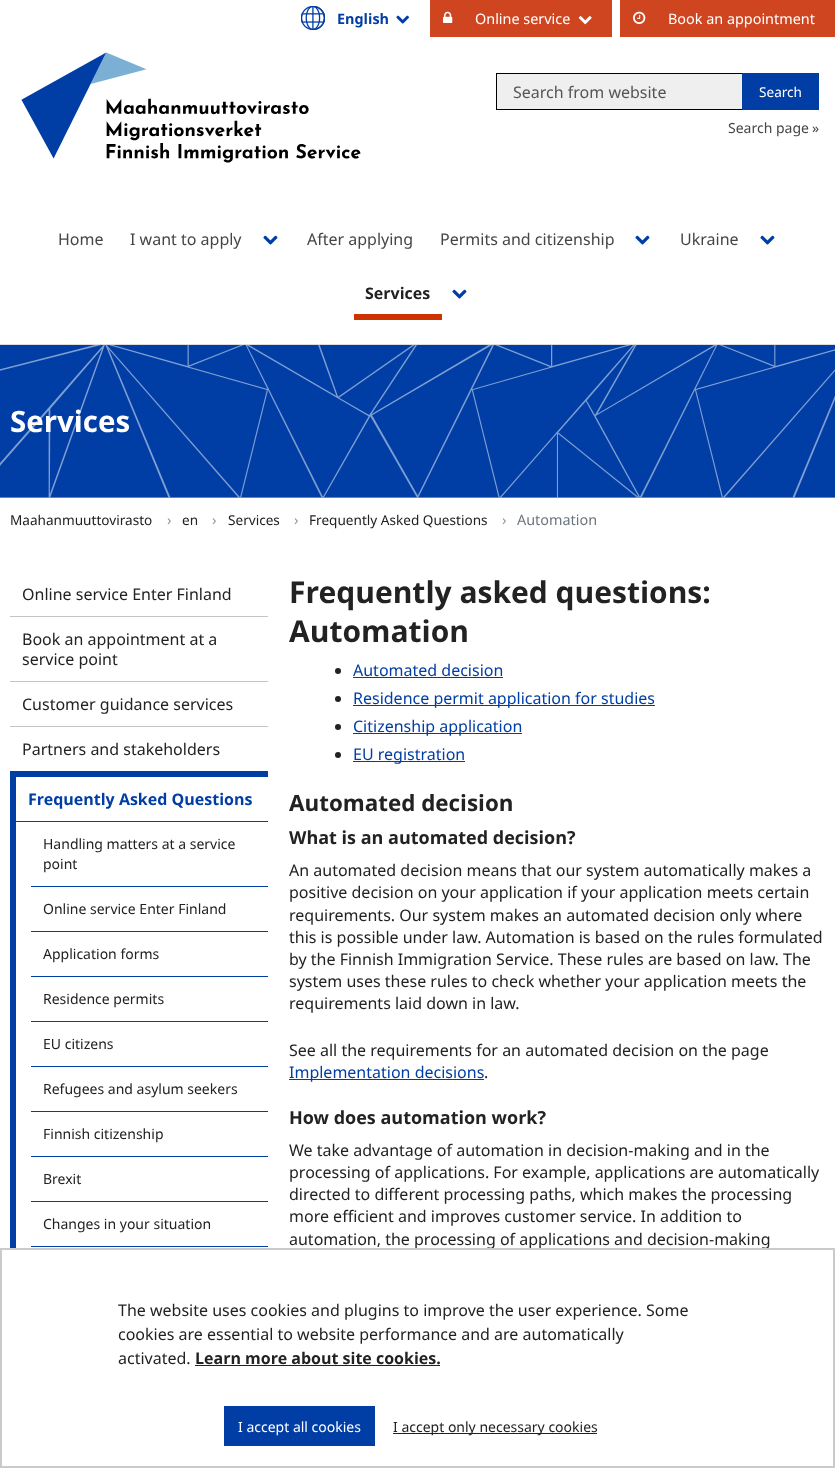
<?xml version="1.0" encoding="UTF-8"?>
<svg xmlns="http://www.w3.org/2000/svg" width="835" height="1468">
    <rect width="100%" height="100%" fill="#FFFFFF"/>
    <rect x="0" y="344" width="835" height="1" fill="#DDDDDD"/>
    <image x="301" y="6" width="24" height="24" href="img_01.png"/>
    <text x="337" y="24" font-family="Noto Sans" font-size="14.4" font-weight="700" fill="#003DA5">English</text>
    <image x="396" y="15" width="13" height="9" href="img_02.png"/>
    <rect x="430" y="0" width="182" height="37" fill="#CF4520"/>
    <image x="443" y="11" width="10" height="12" href="img_03.png"/>
    <text x="475" y="24" font-family="Noto Sans" font-size="14.4" fill="#FFFFFF">Online service</text>
    <image x="578" y="16" width="14" height="9" href="img_04.png"/>
    <rect x="620" y="0" width="215" height="37" fill="#CF4520"/>
    <image x="633" y="11" width="13" height="13" href="img_05.png"/>
    <text x="668" y="24" font-family="Noto Sans" font-size="14.4" fill="#FFFFFF">Book an appointment</text>
    <image x="21" y="52" width="340" height="111" href="img_06.png"/>
    <rect x="496.5" y="73.5" width="246" height="36" fill="#EFEFEF" stroke="#000000"/>
    <text x="513" y="98" font-family="Noto Sans" font-size="16" fill="#555555">Search from website</text>
    <rect x="742" y="73" width="77" height="37" fill="#003DA5"/>
    <text x="759" y="97" font-family="Noto Sans" font-size="13.6" fill="#FFFFFF">Search</text>
    <text x="728" y="133" font-family="Noto Sans" font-size="14" fill="#454545">Search page</text>
    <text x="812" y="133" font-family="Noto Sans" font-size="14" fill="#454545">»</text>
    <text x="58" y="245" font-family="Noto Sans" font-size="16" fill="#454545">Home</text>
    <text x="130" y="245" font-family="Noto Sans" font-size="16" fill="#454545">I want to apply</text>
    <image x="263" y="235" width="15" height="10" href="img_07.png"/>
    <text x="307" y="245" font-family="Noto Sans" font-size="16" fill="#454545">After applying</text>
    <text x="440" y="245" font-family="Noto Sans" font-size="16" fill="#454545">Permits and citizenship</text>
    <image x="635" y="235" width="15" height="10" href="img_07.png"/>
    <text x="680" y="245" font-family="Noto Sans" font-size="16" fill="#454545">Ukraine</text>
    <image x="760" y="235" width="15" height="10" href="img_07.png"/>
    <rect x="354" y="314" width="88" height="6" fill="#CC3300"/>
    <text x="365" y="299" font-family="Noto Sans" font-size="16" font-weight="700" fill="#222222">Services</text>
    <image x="452" y="289" width="15" height="10" href="img_07.png"/>
    <image x="0" y="345" width="835" height="153" href="img_08.png"/>
    <text x="10" y="432" font-family="Noto Sans" font-size="29.5" font-weight="700" fill="#FFFFFF">Services</text>
    <text x="10" y="525" font-family="Noto Sans" font-size="13.6" fill="#222222">Maahanmuuttovirasto</text>
    <text x="167" y="525" font-family="Noto Sans" font-size="14.4" fill="#949494">›</text>
    <text x="182" y="525" font-family="Noto Sans" font-size="13.6" fill="#222222">en</text>
    <text x="212" y="525" font-family="Noto Sans" font-size="14.4" fill="#949494">›</text>
    <text x="228" y="525" font-family="Noto Sans" font-size="13.6" fill="#222222">Services</text>
    <text x="294" y="525" font-family="Noto Sans" font-size="14.4" fill="#949494">›</text>
    <text x="309" y="525" font-family="Noto Sans" font-size="13.6" fill="#222222">Frequently Asked Questions</text>
    <text x="502" y="525" font-family="Noto Sans" font-size="14.4" fill="#949494">›</text>
    <text x="517" y="525" font-family="Noto Sans" font-size="14.4" fill="#6C757D">Automation</text>
    <rect x="10" y="616" width="258" height="1" fill="#C4C4C4"/>
    <text x="22" y="600" font-family="Noto Sans" font-size="16" fill="#222222">Online service Enter Finland</text>
    <rect x="10" y="681" width="258" height="1" fill="#C4C4C4"/>
    <text font-family="Noto Sans" font-size="16" fill="#222222">
        <tspan x="22" y="645">Book an appointment at a</tspan>
        <tspan x="22" y="665">service point</tspan>
    </text>
    <rect x="10" y="726" width="258" height="1" fill="#C4C4C4"/>
    <text x="22" y="710" font-family="Noto Sans" font-size="16" fill="#222222">Customer guidance services</text>
    <text x="22" y="755" font-family="Noto Sans" font-size="16" fill="#222222">Partners and stakeholders</text>
    <rect x="10" y="771" width="258" height="6" fill="#003DA5"/>
    <rect x="10" y="771" width="6" height="477" fill="#003DA5"/>
    <rect x="16" y="821" width="252" height="1" fill="#003DA5"/>
    <text x="28" y="805" font-family="Noto Sans" font-size="16" font-weight="700" fill="#003DA5">Frequently Asked Questions</text>
    <rect x="31" y="886" width="237" height="1" fill="#003DA5"/>
    <text font-family="Noto Sans" font-size="14" fill="#222222">
        <tspan x="43" y="849">Handling matters at a service</tspan>
        <tspan x="43" y="869">point</tspan>
    </text>
    <rect x="31" y="931" width="237" height="1" fill="#003DA5"/>
    <text x="43" y="914" font-family="Noto Sans" font-size="14" fill="#222222">Online service Enter Finland</text>
    <rect x="31" y="976" width="237" height="1" fill="#003DA5"/>
    <text x="43" y="959" font-family="Noto Sans" font-size="14" fill="#222222">Application forms</text>
    <rect x="31" y="1021" width="237" height="1" fill="#003DA5"/>
    <text x="43" y="1004" font-family="Noto Sans" font-size="14" fill="#222222">Residence permits</text>
    <rect x="31" y="1066" width="237" height="1" fill="#003DA5"/>
    <text x="43" y="1049" font-family="Noto Sans" font-size="14" fill="#222222">EU citizens</text>
    <rect x="31" y="1111" width="237" height="1" fill="#003DA5"/>
    <text x="43" y="1094" font-family="Noto Sans" font-size="14" fill="#222222">Refugees and asylum seekers</text>
    <rect x="31" y="1156" width="237" height="1" fill="#003DA5"/>
    <text x="43" y="1139" font-family="Noto Sans" font-size="14" fill="#222222">Finnish citizenship</text>
    <rect x="31" y="1201" width="237" height="1" fill="#003DA5"/>
    <text x="43" y="1184" font-family="Noto Sans" font-size="14" fill="#222222">Brexit</text>
    <rect x="31" y="1246" width="237" height="1" fill="#003DA5"/>
    <text x="43" y="1229" font-family="Noto Sans" font-size="14" fill="#222222">Changes in your situation</text>
    <text font-family="Noto Sans" font-size="30" font-weight="700" fill="#222222">
        <tspan x="289" y="603">Frequently asked questions:</tspan>
        <tspan x="289" y="642">Automation</tspan>
    </text>
    <circle cx="338" cy="671" r="3" fill="#222222"/>
    <text x="353" y="676" font-family="Noto Sans" font-size="16" fill="#003DA5">Automated decision</text>
    <rect x="353" y="677" width="150" height="1" fill="#003DA5"/>
    <circle cx="338" cy="699" r="3" fill="#222222"/>
    <rect x="353" y="705" width="302" height="1" fill="#003DA5"/>
    <text x="353" y="704" font-family="Noto Sans" font-size="16" fill="#003DA5">Residence permit application for studies</text>
    <circle cx="338" cy="727" r="3" fill="#222222"/>
    <rect x="353" y="733" width="169" height="1" fill="#003DA5"/>
    <text x="353" y="732" font-family="Noto Sans" font-size="16" fill="#003DA5">Citizenship application</text>
    <circle cx="338" cy="755" r="3" fill="#222222"/>
    <rect x="353" y="761" width="112" height="1" fill="#003DA5"/>
    <text x="353" y="760" font-family="Noto Sans" font-size="16" fill="#003DA5">EU registration</text>
    <text x="289" y="811" font-family="Noto Sans" font-size="22.4" font-weight="700" fill="#222222">Automated decision</text>
    <text x="289" y="844" font-family="Noto Sans" font-size="18" font-weight="700" fill="#222222">What is an automated decision?</text>
    <text font-family="Noto Sans" font-size="16" fill="#222222">
        <tspan x="289" y="876">An automated decision means that our system automatically makes a</tspan>
        <tspan x="289" y="898">positive decision on your application if your application meets certain</tspan>
        <tspan x="289" y="921">requirements. Our system makes an automated decision only where</tspan>
        <tspan x="289" y="943">this is possible under law. Automation is based on the rules formulated</tspan>
        <tspan x="289" y="965">by the Finnish Immigration Service. These rules are based on law. The</tspan>
        <tspan x="289" y="987">system uses these rules to check whether your application meets the</tspan>
        <tspan x="289" y="1009">requirements laid down in law.</tspan>
    </text>
    <text x="289" y="1056" font-family="Noto Sans" font-size="16" fill="#222222">See all the requirements for an automated decision on the page</text>
    <rect x="289" y="1079" width="195" height="1" fill="#003DA5"/>
    <text x="289" y="1078" font-family="Noto Sans" font-size="16" fill="#003DA5">Implementation decisions</text>
    <text x="484" y="1078" font-family="Noto Sans" font-size="16" fill="#222222">.</text>
    <text x="289" y="1124" font-family="Noto Sans" font-size="18" font-weight="700" fill="#222222">How does automation work?</text>
    <text font-family="Noto Sans" font-size="16" fill="#222222">
        <tspan x="289" y="1156">We take advantage of automation in decision-making and in the</tspan>
        <tspan x="289" y="1178">processing of applications. For example, applications are automatically</tspan>
        <tspan x="289" y="1200">directed to different processing paths, which makes the processing</tspan>
        <tspan x="289" y="1222">more efficient and improves customer service. In addition to</tspan>
        <tspan x="289" y="1245">automation, the processing of applications and decision-making</tspan>
    </text>
    <rect x="1" y="1249" width="833" height="218" fill="none" stroke="#CACACA" stroke-width="2"/>
    <text font-family="Noto Sans" font-size="16" fill="#222222">
        <tspan x="118" y="1316">The website uses cookies and plugins to improve the user experience. Some</tspan>
        <tspan x="118" y="1340">cookies are essential to website performance and are automatically</tspan>
        <tspan x="118" y="1364">activated.</tspan>
    </text>
    <text x="195" y="1364" font-family="Noto Sans" font-size="16" font-weight="700" fill="#222222">Learn more about site cookies.</text>
    <rect x="195" y="1365" width="245" height="1" fill="#222222"/>
    <rect x="224" y="1406" width="151" height="40" fill="#003DA5"/>
    <text x="238" y="1432" font-family="Noto Sans" font-size="14" fill="#FFFFFF">I accept all cookies</text>
    <rect x="393" y="1433" width="204" height="1" fill="#222222"/>
    <text x="393" y="1432" font-family="Noto Sans" font-size="14" fill="#222222">I accept only necessary cookies</text>
</svg>
